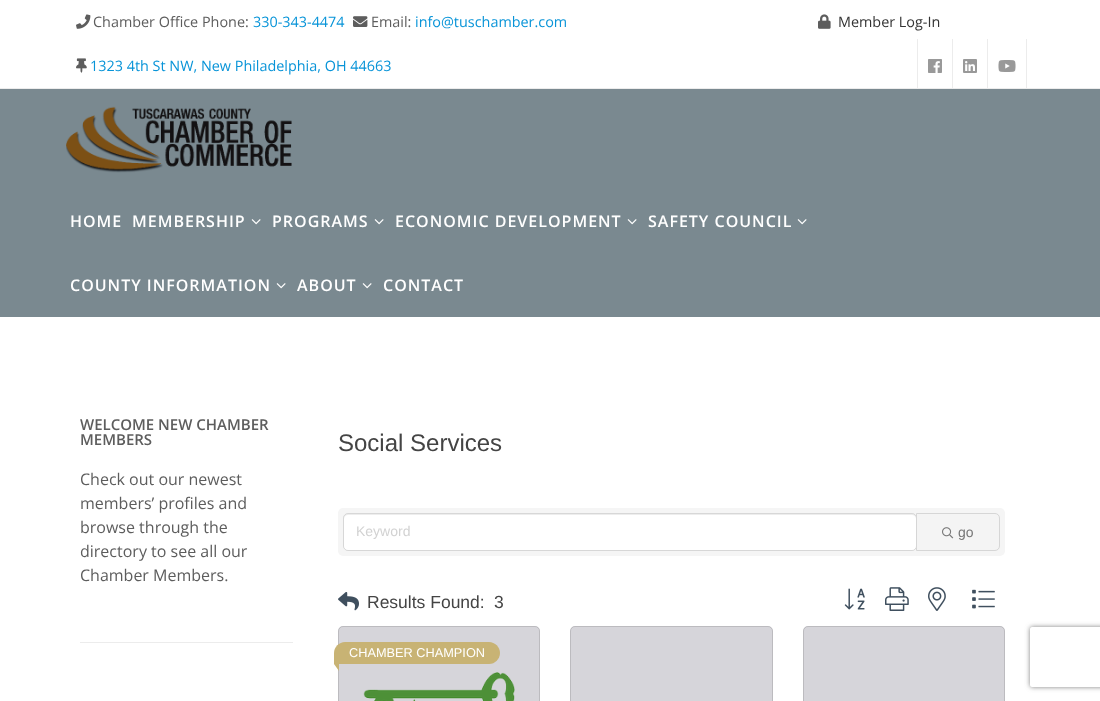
<?xml version="1.0" encoding="UTF-8"?>
<svg xmlns="http://www.w3.org/2000/svg" width="1100" height="701">
    <defs>
        <clipPath id="clip1"><path d="M 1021 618 H 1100 V 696 H 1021 Z M 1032 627 H 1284 C 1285 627 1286 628 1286 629 V 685 C 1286 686 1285 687 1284 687 H 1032 C 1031 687 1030 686 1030 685 V 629 C 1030 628 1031 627 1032 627 Z" clip-rule="evenodd"/></clipPath>
        <filter id="blur1" x="-50%" y="-200%" width="200%" height="500%"><feGaussianBlur stdDeviation="2.5"/></filter>
    </defs>
    <rect width="100%" height="100%" fill="#FFFFFF"/>
    <rect x="0" y="88" width="1100" height="1" fill="#ECECEC"/>
    <image x="76" y="14" width="15" height="15" href="img_01.png"/>
    <text x="93" y="27" font-family="Open Sans" font-size="14.4" fill="#5D5D5D">Chamber Office Phone:</text>
    <text x="253" y="27" font-family="Open Sans" font-size="14.4" fill="#0894D8">330-343-4474</text>
    <image x="353" y="16" width="15" height="11" href="img_02.png"/>
    <text x="371" y="27" font-family="Open Sans" font-size="14.4" fill="#5D5D5D">Email:</text>
    <text x="415" y="27" font-family="Open Sans" font-size="14.4" fill="#0894D8">info@tuschamber.com</text>
    <image x="76" y="58" width="11" height="15" href="img_03.png"/>
    <text x="90" y="71" font-family="Open Sans" font-size="14.4" fill="#0894D8">1323 4th St NW, New Philadelphia, OH 44663</text>
    <image x="818" y="14" width="13" height="15" href="img_04.png"/>
    <text x="838" y="27" font-family="Open Sans" font-size="14.4" fill="#333333">Member Log-In</text>
    <rect x="917" y="39" width="1" height="54" fill="#ECECEC"/>
    <image x="928" y="59" width="14" height="14" href="img_05.png"/>
    <rect x="952" y="39" width="1" height="54" fill="#ECECEC"/>
    <image x="963" y="59" width="14" height="14" href="img_06.png"/>
    <rect x="1026" y="39" width="1" height="54" fill="#ECECEC"/>
    <rect x="987" y="39" width="1" height="54" fill="#ECECEC"/>
    <image x="998" y="60" width="18" height="12" href="img_07.png"/>
    <rect x="0" y="89" width="1100" height="228" fill="#7A8990"/>
    <image x="66" y="106" width="226" height="67" href="img_08.png"/>
    <text x="70" y="227" font-family="Open Sans" font-size="16" font-weight="600" letter-spacing="1" fill="#FFFFFF">HOME</text>
    <text x="132" y="227" font-family="Open Sans" font-size="16" font-weight="600" letter-spacing="1" fill="#FFFFFF">MEMBERSHIP</text>
    <image x="251" y="219" width="10" height="6" href="img_09.png"/>
    <text x="272" y="227" font-family="Open Sans" font-size="16" font-weight="600" letter-spacing="1" fill="#FFFFFF">PROGRAMS</text>
    <image x="374" y="219" width="10" height="6" href="img_09.png"/>
    <text x="395" y="227" font-family="Open Sans" font-size="16" font-weight="600" letter-spacing="1" fill="#FFFFFF">ECONOMIC DEVELOPMENT</text>
    <image x="627" y="219" width="10" height="6" href="img_09.png"/>
    <text x="648" y="227" font-family="Open Sans" font-size="16" font-weight="600" letter-spacing="1" fill="#FFFFFF">SAFETY COUNCIL</text>
    <image x="797" y="219" width="10" height="6" href="img_09.png"/>
    <text x="70" y="291" font-family="Open Sans" font-size="16" font-weight="600" letter-spacing="1" fill="#FFFFFF">COUNTY INFORMATION</text>
    <image x="276" y="283" width="10" height="6" href="img_09.png"/>
    <text x="297" y="291" font-family="Open Sans" font-size="16" font-weight="600" letter-spacing="1" fill="#FFFFFF">ABOUT</text>
    <image x="362" y="283" width="10" height="6" href="img_09.png"/>
    <text x="383" y="291" font-family="Open Sans" font-size="16" font-weight="600" letter-spacing="1" fill="#FFFFFF">CONTACT</text>
    <rect x="80" y="642" width="213" height="1" fill="#ECECEC"/>
    <text font-family="Open Sans" font-size="15" font-weight="600" fill="#5D5D5D">
        <tspan x="80" y="430">WELCOME NEW CHAMBER</tspan>
        <tspan x="80" y="445">MEMBERS</tspan>
    </text>
    <text font-family="Open Sans" font-size="16" fill="#5D5D5D">
        <tspan x="80" y="485">Check out our newest</tspan>
        <tspan x="80" y="509">members’ profiles and</tspan>
        <tspan x="80" y="533">browse through the</tspan>
        <tspan x="80" y="557">directory to see all our</tspan>
        <tspan x="80" y="581">Chamber Members.</tspan>
    </text>
    <text x="338" y="451" font-family="Liberation Sans" font-size="24" fill="#444444">Social Services</text>
    <rect x="338" y="508" width="667" height="48" rx="5" fill="#F5F5F5"/>
    <rect x="344" y="514" width="572" height="36" rx="4" fill="#FFFFFF"/>
    <path d="M 348 515 H 912 C 914 515 916 517 916 519 C 916 516 915 514 912 514 H 348 C 345 514 344 516 344 519 C 344 517 346 515 348 515 Z" fill="#000000" fill-opacity="0.07"/>
    <rect x="343.5" y="513.5" width="573" height="37" rx="4.5" fill="none" stroke="#000000" stroke-opacity="0.12"/>
    <text x="356" y="536" font-family="Liberation Sans" font-size="14" fill="#D2D2D2">Keyword</text>
    <path d="M 916.5 513.5 H 995 C 997.5 513.5 999.5 515.5 999.5 518 V 546 C 999.5 548.5 997.5 550.5 995 550.5 H 916.5 Z" fill="#F4F4F4" stroke="#D6D6D6"/>
    <image x="942" y="527" width="12" height="12" href="img_10.png"/>
    <text x="958" y="537" font-family="Liberation Sans" font-size="14" fill="#777777">go</text>
    <image x="338" y="592" width="21" height="19" href="img_11.png"/>
    <text x="367" y="608" font-family="Liberation Sans" font-size="17.5" fill="#444444">Results Found:</text>
    <text x="494" y="608" font-family="Liberation Sans" font-size="17.5" fill="#444444">3</text>
    <image x="844" y="588" width="21" height="22" href="img_12.png"/>
    <image x="885" y="587" width="24" height="24" href="img_13.png"/>
    <image x="928" y="587" width="18" height="24" href="img_14.png"/>
    <image x="972" y="589" width="23" height="20" href="img_15.png"/>
    <rect x="338" y="626" width="202" height="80" rx="5" fill="#D6D5DA"/>
    <rect x="338.5" y="626.5" width="201" height="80" rx="4.5" fill="none" stroke="#000000" stroke-opacity="0.12"/>
    <path d="M 345 642 H 489 C 495 642 500 647 500 653 C 500 659 495 664 489 664 H 334.5 C 334 664 334 664 334 663.5 V 653 C 334 647 339 642 345 642 Z" fill="#C8B374"/>
    <text x="349" y="657" font-family="Liberation Sans" font-size="12.75" fill="#FFFFFF">CHAMBER CHAMPION</text>
    <path d="M 339 657 V 671 L 334 664 Z" fill="#C8B374"/>
    <image x="363" y="672" width="152" height="29" href="img_16.png"/>
    <rect x="570" y="626" width="203" height="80" rx="5" fill="#D6D5DA"/>
    <rect x="570.5" y="626.5" width="202" height="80" rx="4.5" fill="none" stroke="#000000" stroke-opacity="0.12"/>
    <rect x="803" y="626" width="202" height="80" rx="5" fill="#D6D5DA"/>
    <rect x="803.5" y="626.5" width="201" height="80" rx="4.5" fill="none" stroke="#000000" stroke-opacity="0.12"/>
    <g clip-path="url(#clip1)">
        <rect x="1030" y="627" width="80" height="60" rx="2" fill="#808080" filter="url(#blur1)"/>
    </g>
</svg>
